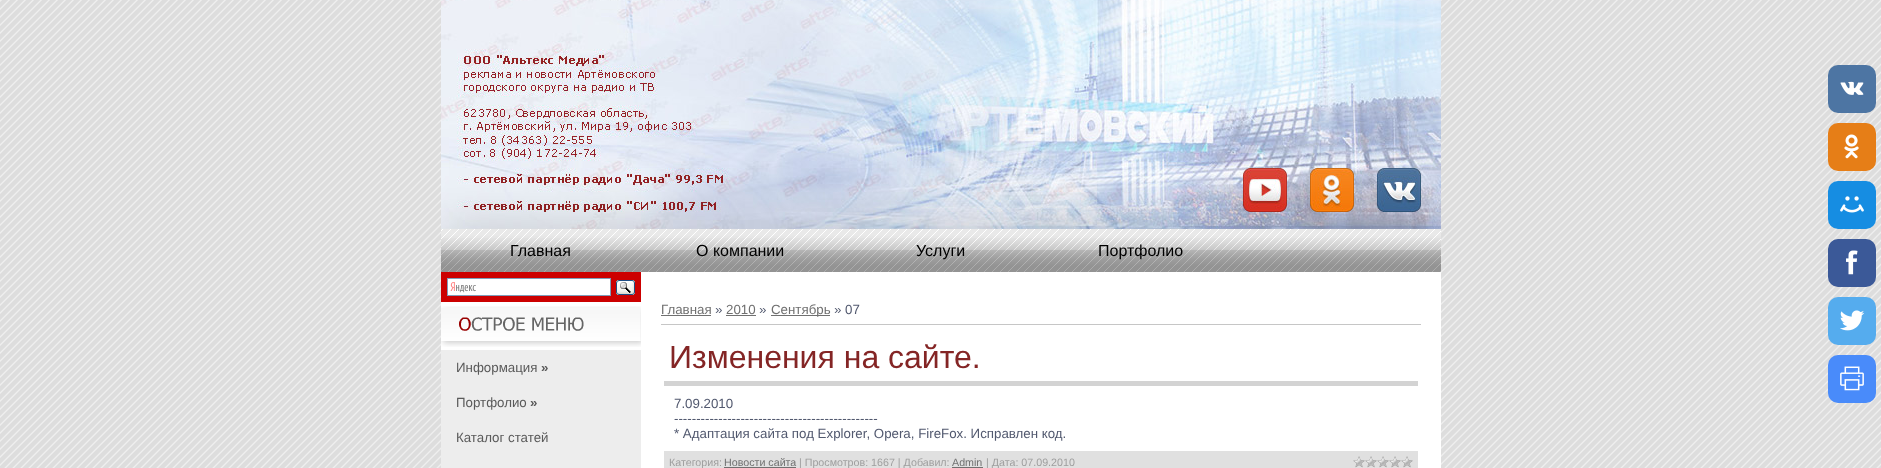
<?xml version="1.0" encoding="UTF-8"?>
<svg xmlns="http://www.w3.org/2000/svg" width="1881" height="468">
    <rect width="100%" height="100%" fill="#FFFFFF"/>
    <image x="0" y="0" width="1881" height="468" href="img_01.png"/>
    <image x="441" y="0" width="1000" height="168" href="img_02.png"/>
    <image x="441" y="168" width="802" height="44" href="img_03.png"/>
    <image x="1243" y="168" width="44" height="44" href="img_04.png"/>
    <image x="1287" y="168" width="23" height="44" href="img_05.png"/>
    <image x="1310" y="168" width="44" height="44" href="img_06.png"/>
    <image x="1354" y="168" width="23" height="44" href="img_07.png"/>
    <image x="1377" y="168" width="44" height="44" href="img_08.png"/>
    <image x="1421" y="168" width="20" height="44" href="img_09.png"/>
    <image x="441" y="212" width="1000" height="17" href="img_10.png"/>
    <image x="441" y="229" width="1000" height="43" href="img_11.png"/>
    <text x="510" y="256" font-family="Liberation Sans" font-size="16" fill="#000000">Главная</text>
    <text x="696" y="256" font-family="Liberation Sans" font-size="16" fill="#000000">О компании</text>
    <text x="916" y="256" font-family="Liberation Sans" font-size="16" fill="#000000">Услуги</text>
    <text x="1098" y="256" font-family="Liberation Sans" font-size="16" fill="#000000">Портфолио</text>
    <rect x="441" y="272" width="1000" height="196" fill="#FFFFFF"/>
    <rect x="441" y="272" width="200" height="30" fill="#CC0000"/>
    <rect x="448" y="279" width="162" height="16" fill="#FFFFFF"/>
    <image x="450" y="282" width="26" height="11" href="img_12.png"/>
    <rect x="447.5" y="278.5" width="163" height="17" fill="none" stroke="#7F9DB9"/>
    <image x="616" y="280" width="19" height="15" href="img_13.png"/>
    <image x="441" y="306" width="200" height="41" href="img_14.png"/>
    <rect x="441" y="350" width="200" height="118" fill="#EDEDED"/>
    <text x="456" y="372" font-family="Liberation Sans" font-size="13.3" fill="#5A5A5A">Информация</text>
    <text x="541" y="372" font-family="Liberation Sans" font-size="13.3" font-weight="700" fill="#5A5A5A">»</text>
    <text x="456" y="407" font-family="Liberation Sans" font-size="13.3" fill="#5A5A5A">Портфолио</text>
    <text x="530" y="407" font-family="Liberation Sans" font-size="13.3" font-weight="700" fill="#5A5A5A">»</text>
    <text x="456" y="442" font-family="Liberation Sans" font-size="13.3" fill="#5A5A5A">Каталог статей</text>
    <text x="661" y="314" font-family="Liberation Sans" font-size="13.3" fill="#707070">Главная</text>
    <rect x="661" y="315" width="50" height="1" fill="#707070"/>
    <text x="715" y="314" font-family="Liberation Sans" font-size="13.3" fill="#52596F">»</text>
    <text x="726" y="314" font-family="Liberation Sans" font-size="13.3" fill="#707070">2010</text>
    <rect x="726" y="315" width="30" height="1" fill="#707070"/>
    <text x="759" y="314" font-family="Liberation Sans" font-size="13.3" fill="#52596F">»</text>
    <rect x="771" y="315" width="59" height="1" fill="#707070"/>
    <text x="771" y="314" font-family="Liberation Sans" font-size="13.3" fill="#707070">Сентябрь</text>
    <text x="834" y="314" font-family="Liberation Sans" font-size="13.3" fill="#52596F">» 07</text>
    <rect x="661" y="324" width="760" height="1" fill="#C6C6C6"/>
    <rect x="664" y="381" width="754" height="5" fill="#D3D3D3"/>
    <text x="669" y="368" font-family="Liberation Sans" font-size="32" fill="#842525">Изменения на сайте.</text>
    <text font-family="Liberation Sans" font-size="13.3" fill="#52596F">
        <tspan x="674" y="408">7.09.2010</tspan>
        <tspan x="674" y="423">----------------------------------------------</tspan>
        <tspan x="674" y="438">* Адаптация сайта под Explorer, Opera, FireFox. Исправлен код.</tspan>
    </text>
    <rect x="664" y="451" width="754" height="17" fill="#E0E0E0"/>
    <text x="669" y="466" font-family="Liberation Sans" font-size="10.7" fill="#9E9E9E">Категория:</text>
    <text x="724" y="466" font-family="Liberation Sans" font-size="10.7" fill="#707070">Новости сайта</text>
    <rect x="724" y="467" width="72" height="1" fill="#707070"/>
    <text x="799" y="466" font-family="Liberation Sans" font-size="10.7" fill="#9E9E9E">| Просмотров: 1667 | Добавил:</text>
    <text x="952" y="466" font-family="Liberation Sans" font-size="10.7" fill="#707070">Admin</text>
    <rect x="952" y="467" width="31" height="1" fill="#707070"/>
    <text x="986" y="466" font-family="Liberation Sans" font-size="10.7" fill="#9E9E9E">| Дата: 07.09.2010</text>
    <image x="1353" y="456" width="60" height="12" href="img_15.png"/>
    <rect x="1828" y="65" width="48" height="48" rx="10" fill="#4D75A3"/>
    <image x="1840" y="81" width="24" height="14" href="img_16.png"/>
    <rect x="1828" y="123" width="48" height="48" rx="10" fill="#E67E17"/>
    <image x="1844" y="134" width="15" height="25" href="img_17.png"/>
    <rect x="1828" y="181" width="48" height="48" rx="10" fill="#168DE2"/>
    <image x="1840" y="196" width="24" height="17" href="img_18.png"/>
    <rect x="1828" y="239" width="48" height="48" rx="10" fill="#3B5998"/>
    <image x="1846" y="250" width="12" height="25" href="img_19.png"/>
    <rect x="1828" y="297" width="48" height="48" rx="10" fill="#55ACEE"/>
    <image x="1840" y="310" width="25" height="21" href="img_20.png"/>
    <rect x="1828" y="355" width="48" height="48" rx="10" fill="#498BFA"/>
    <image x="1840" y="366" width="24" height="25" href="img_21.png"/>
</svg>
